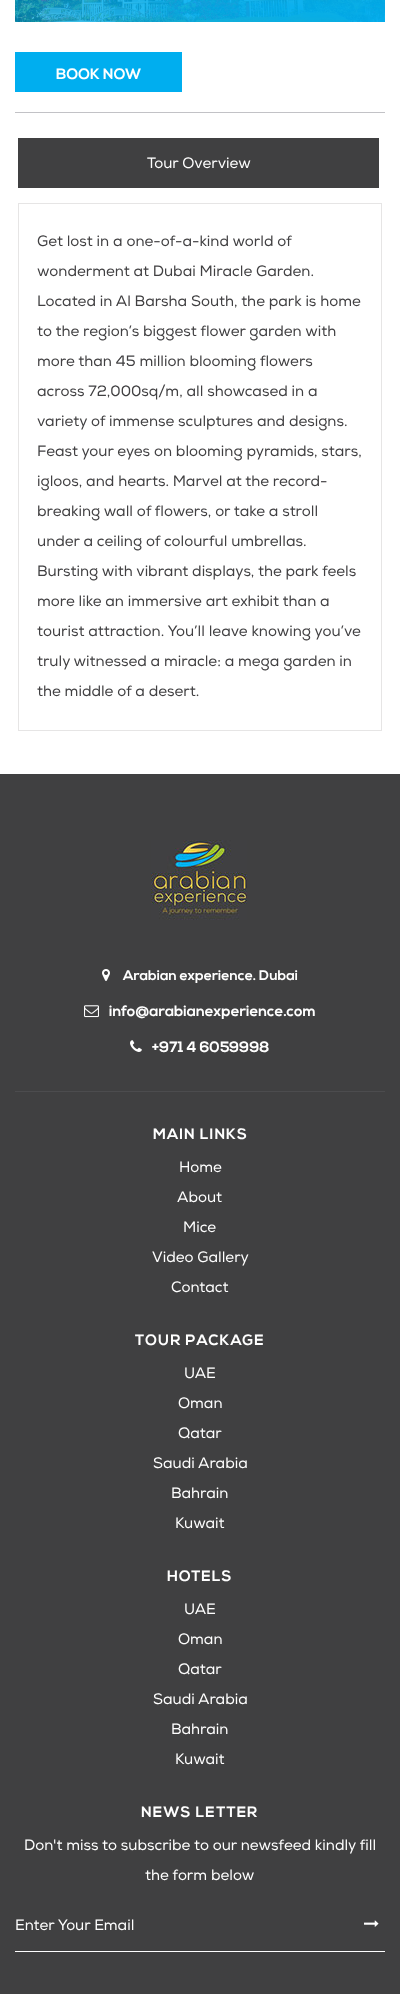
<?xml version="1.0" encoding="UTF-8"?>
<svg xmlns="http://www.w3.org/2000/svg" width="400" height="1994">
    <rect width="100%" height="100%" fill="#FFFFFF"/>
    <image x="15" y="0" width="370" height="22" href="img_01.png"/>
    <image x="15" y="0" width="370" height="22" href="img_02.png"/>
    <rect x="15" y="112" width="370" height="1" fill="#C2C2C6"/>
    <rect x="15" y="52" width="167" height="40" fill="#00AEEF"/>
    <text x="56" y="79" font-family="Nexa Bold" font-size="15" font-weight="700" fill="#FFFFFF">BOOK NOW</text>
    <rect x="18" y="138" width="361" height="50" fill="#404041"/>
    <text x="147" y="168" font-family="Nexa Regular" font-size="15" fill="#FFFFFF">Tour Overview</text>
    <rect x="18.5" y="203.5" width="363" height="527" fill="none" stroke="#E6E5E5"/>
    <text x="37" y="246" font-family="Nexa Regular" font-size="15" fill="#414042">Get lost in a one-of-a-kind world of</text>
    <text x="37" y="276" font-family="Nexa Regular" font-size="15" fill="#414042">wonderment at Dubai Miracle Garden.</text>
    <text x="37" y="306" font-family="Nexa Regular" font-size="15" fill="#414042">Located in Al Barsha South, the park is home</text>
    <text x="37" y="336" font-family="Nexa Regular" font-size="15" fill="#414042">to the region’s biggest flower garden with</text>
    <text x="37" y="366" font-family="Nexa Regular" font-size="15" fill="#414042">more than 45 million blooming flowers</text>
    <text x="37" y="396" font-family="Nexa Regular" font-size="15" fill="#414042">across 72,000sq/m, all showcased in a</text>
    <text x="37" y="426" font-family="Nexa Regular" font-size="15" fill="#414042">variety of immense sculptures and designs.</text>
    <text x="37" y="456" font-family="Nexa Regular" font-size="15" fill="#414042">Feast your eyes on blooming pyramids, stars,</text>
    <text x="37" y="486" font-family="Nexa Regular" font-size="15" fill="#414042">igloos, and hearts. Marvel at the record-</text>
    <text x="37" y="516" font-family="Nexa Regular" font-size="15" fill="#414042">breaking wall of flowers, or take a stroll</text>
    <text x="37" y="546" font-family="Nexa Regular" font-size="15" fill="#414042">under a ceiling of colourful umbrellas.</text>
    <text x="37" y="576" font-family="Nexa Regular" font-size="15" fill="#414042">Bursting with vibrant displays, the park feels</text>
    <text x="37" y="606" font-family="Nexa Regular" font-size="15" fill="#414042">more like an immersive art exhibit than a</text>
    <text x="37" y="636" font-family="Nexa Regular" font-size="15" fill="#414042">tourist attraction. You’ll leave knowing you’ve</text>
    <text x="37" y="666" font-family="Nexa Regular" font-size="15" fill="#414042">truly witnessed a miracle: a mega garden in</text>
    <text x="37" y="696" font-family="Nexa Regular" font-size="15" fill="#414042">the middle of a desert.</text>
    <rect x="0" y="774" width="400" height="1220" fill="#404041"/>
    <image x="151" y="840" width="96" height="80" href="img_03.png"/>
    <image x="102" y="969" width="8" height="12" href="img_04.png"/>
    <text x="123" y="980" font-family="Nexa Bold" font-size="14" font-weight="700" fill="#FFFFFF">Arabian experience. Dubai</text>
    <image x="84" y="1005" width="15" height="13" href="img_05.png"/>
    <text x="109" y="1016" font-family="Nexa Bold" font-size="15" font-weight="700" fill="#FFFFFF">info@arabianexperience.com</text>
    <image x="130" y="1040" width="12" height="12" href="img_06.png"/>
    <text x="152" y="1052" font-family="Nexa Bold" font-size="15" font-weight="700" fill="#FFFFFF">+971 4 6059998</text>
    <rect x="15" y="1091" width="370" height="1" fill="#4C4C4E"/>
    <text x="153" y="1139" font-family="Nexa Bold" font-size="15" font-weight="700" letter-spacing="1" fill="#FFFFFF">MAIN LINKS</text>
    <text x="179" y="1172" font-family="Nexa Regular" font-size="15" fill="#FFFFFF">Home</text>
    <text x="177" y="1202" font-family="Nexa Regular" font-size="15" fill="#FFFFFF">About</text>
    <text x="183" y="1232" font-family="Nexa Regular" font-size="15" fill="#FFFFFF">Mice</text>
    <text x="152" y="1262" font-family="Nexa Regular" font-size="15" fill="#FFFFFF">Video Gallery</text>
    <text x="171" y="1292" font-family="Nexa Regular" font-size="15" fill="#FFFFFF">Contact</text>
    <text x="135" y="1345" font-family="Nexa Bold" font-size="15" font-weight="700" letter-spacing="1" fill="#FFFFFF">TOUR PACKAGE</text>
    <text x="184" y="1378" font-family="Nexa Regular" font-size="15" fill="#FFFFFF">UAE</text>
    <text x="178" y="1408" font-family="Nexa Regular" font-size="15" fill="#FFFFFF">Oman</text>
    <text x="178" y="1438" font-family="Nexa Regular" font-size="15" fill="#FFFFFF">Qatar</text>
    <text x="153" y="1468" font-family="Nexa Regular" font-size="15" fill="#FFFFFF">Saudi Arabia</text>
    <text x="171" y="1498" font-family="Nexa Regular" font-size="15" fill="#FFFFFF">Bahrain</text>
    <text x="175" y="1528" font-family="Nexa Regular" font-size="15" fill="#FFFFFF">Kuwait</text>
    <text x="167" y="1581" font-family="Nexa Bold" font-size="15" font-weight="700" letter-spacing="1" fill="#FFFFFF">HOTELS</text>
    <text x="184" y="1614" font-family="Nexa Regular" font-size="15" fill="#FFFFFF">UAE</text>
    <text x="178" y="1644" font-family="Nexa Regular" font-size="15" fill="#FFFFFF">Oman</text>
    <text x="178" y="1674" font-family="Nexa Regular" font-size="15" fill="#FFFFFF">Qatar</text>
    <text x="153" y="1704" font-family="Nexa Regular" font-size="15" fill="#FFFFFF">Saudi Arabia</text>
    <text x="171" y="1734" font-family="Nexa Regular" font-size="15" fill="#FFFFFF">Bahrain</text>
    <text x="175" y="1764" font-family="Nexa Regular" font-size="15" fill="#FFFFFF">Kuwait</text>
    <text x="141" y="1817" font-family="Nexa Bold" font-size="15" font-weight="700" letter-spacing="1" fill="#FFFFFF">NEWS LETTER</text>
    <text x="24" y="1850" font-family="Nexa Regular" font-size="15" fill="#FFFFFF">Don't miss to subscribe to our newsfeed kindly fill</text>
    <text x="145" y="1880" font-family="Nexa Regular" font-size="15" fill="#FFFFFF">the form below</text>
    <rect x="15" y="1951" width="370" height="1" fill="#FFFFFF"/>
    <text x="15" y="1930" font-family="Nexa Regular" font-size="15" fill="#FFFFFF">Enter Your Email</text>
    <image x="364" y="1920" width="15" height="7" href="img_07.png"/>
</svg>
